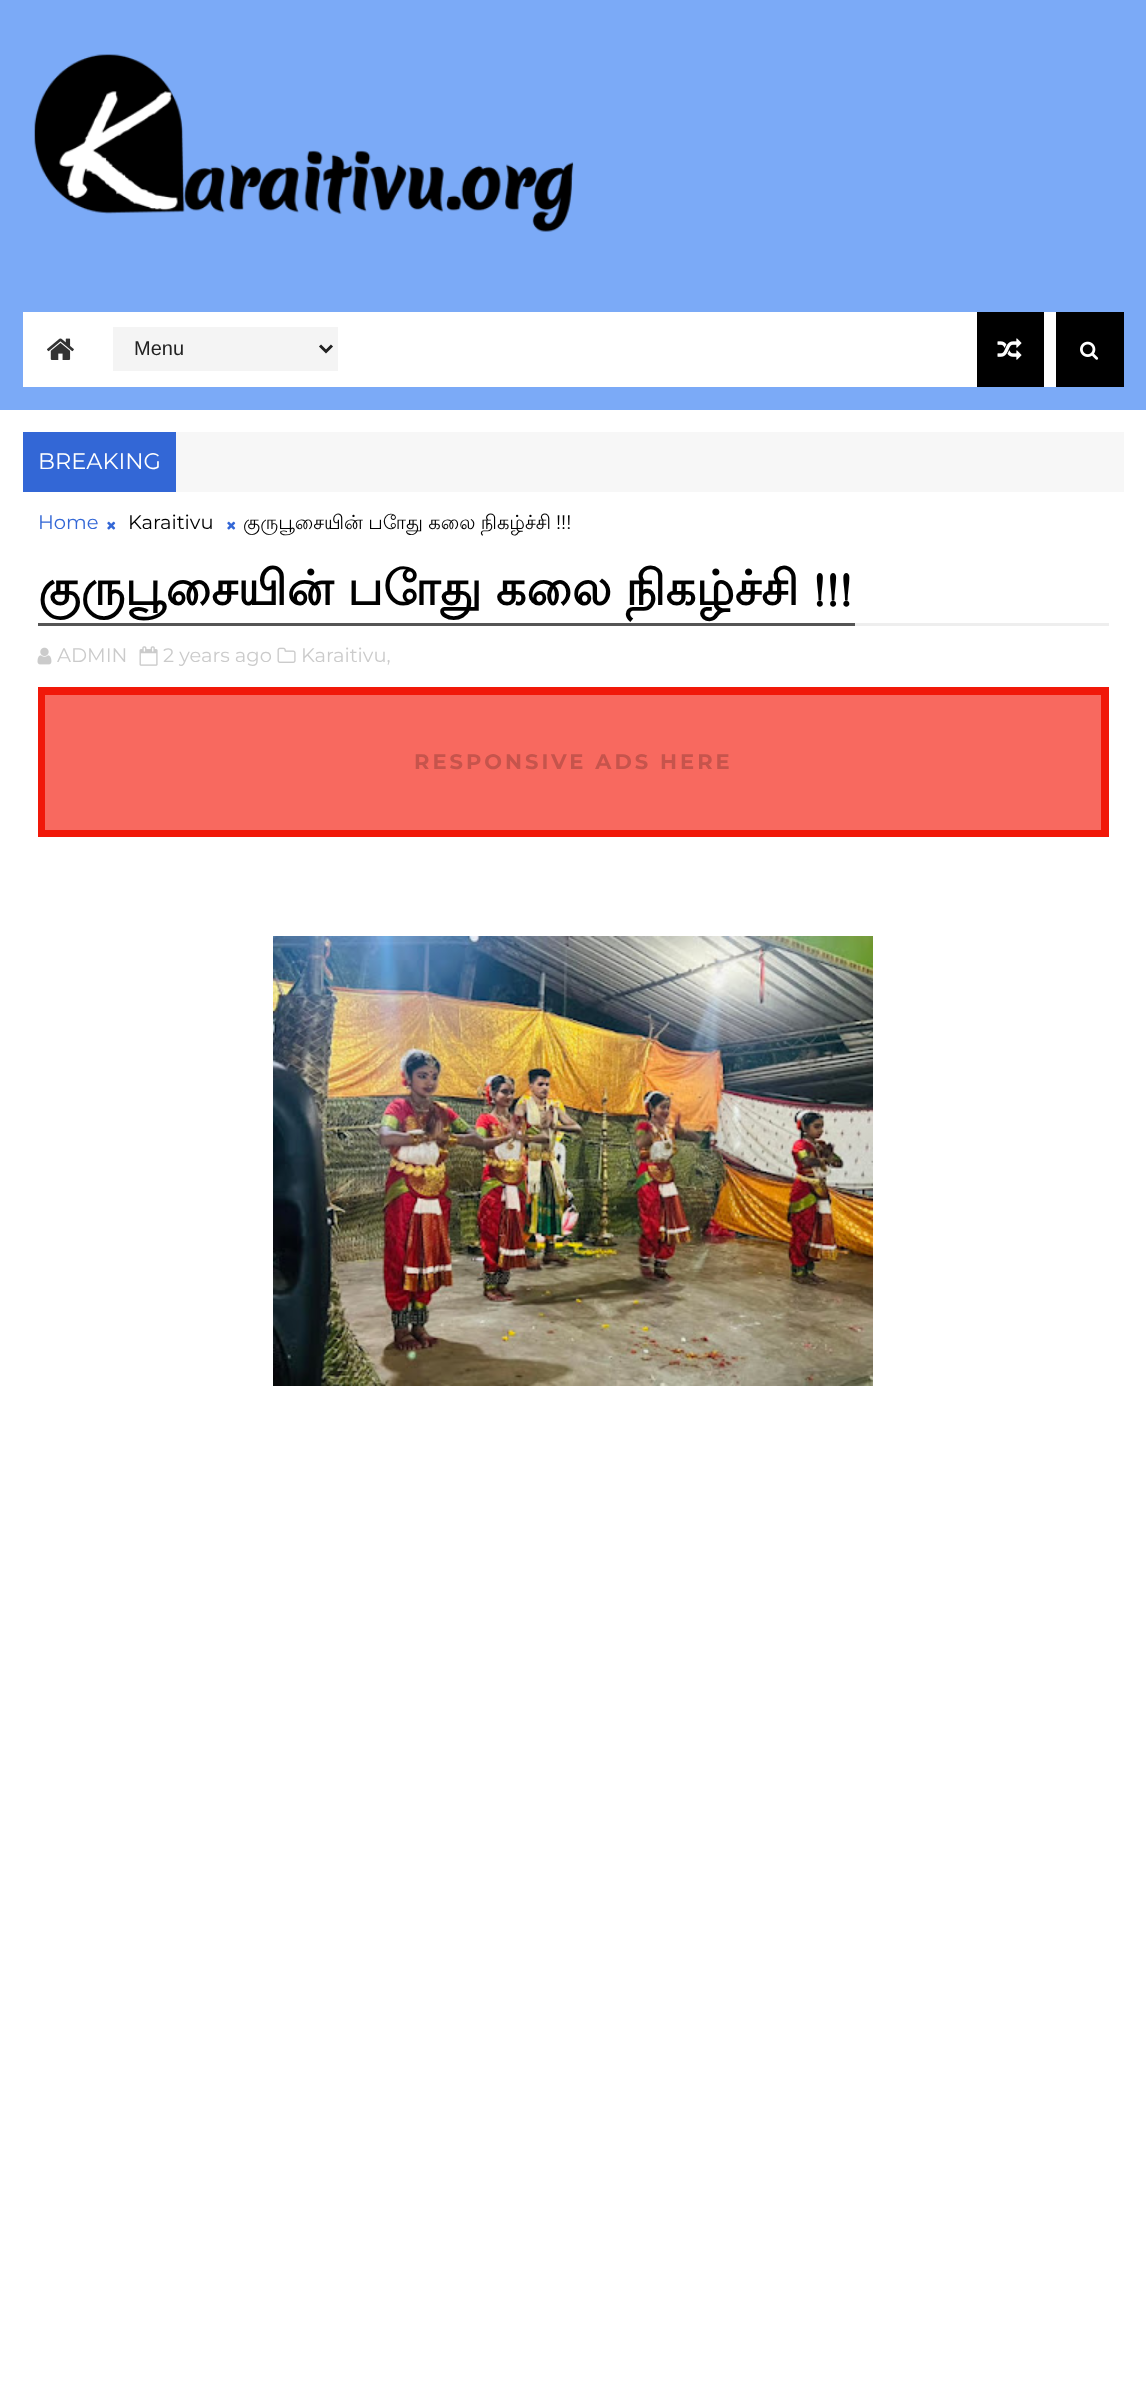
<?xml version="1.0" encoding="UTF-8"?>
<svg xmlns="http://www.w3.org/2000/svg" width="1146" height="2398">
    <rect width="100%" height="100%" fill="#FFFFFF"/>
    <rect x="0" y="0" width="1146" height="410" fill="#7BAAF7"/>
    <image x="34" y="54" width="540" height="178" href="img_01.png"/>
    <rect x="23" y="312" width="1033" height="75" fill="#FFFFFF"/>
    <image x="47" y="338" width="27" height="22" href="img_02.png"/>
    <rect x="113" y="327" width="225" height="44" fill="#F4F4F4"/>
    <path d="M 320 345.5 L 326 351.5 L 332 345.5" fill="none" stroke="#222222" stroke-width="3"/>
    <text x="134" y="355" font-family="Liberation Sans" font-size="20" fill="#222222">Menu</text>
    <rect x="977" y="312" width="67" height="75" fill="#000000"/>
    <image x="997" y="338" width="25" height="22" href="img_03.png"/>
    <rect x="1056" y="312" width="68" height="75" fill="#000000"/>
    <image x="1080" y="341" width="19" height="19" href="img_04.png"/>
    <rect x="176" y="432" width="948" height="60" fill="#F7F7F7"/>
    <rect x="23" y="432" width="153" height="60" fill="#3367D6"/>
    <text x="38" y="469" font-family="Montserrat" font-size="22.5" fill="#FFFFFF">BREAKING</text>
    <text x="38" y="529" font-family="Montserrat" font-size="19.5" fill="#3367D6">Home</text>
    <image x="107" y="521" width="9" height="9" href="img_05.png"/>
    <text x="128" y="529" font-family="Montserrat" font-size="19.5" fill="#000000">Karaitivu</text>
    <image x="227" y="521" width="9" height="9" href="img_05.png"/>
    <text x="243" y="529" word-spacing="-0.5" font-family="Lohit Tamil" font-size="19.5" fill="#000000">குருபூசையின் போது கலை நிகழ்ச்சி</text>
    <text x="556" y="529" font-family="Montserrat" font-size="19.5" fill="#000000">!!!</text>
    <rect x="855" y="623" width="254" height="3" fill="#EEEEEE"/>
    <rect x="38" y="623" width="817" height="3" fill="#555555"/>
    <text x="38" y="605" word-spacing="-0.5" font-family="Lohit Tamil" font-size="48" font-weight="700" fill="#000000">குருபூசையின் போது கலை நிகழ்ச்சி !!!</text>
    <image x="37" y="647" width="15" height="18" href="img_06.png"/>
    <text x="57" y="662" font-family="Montserrat" font-size="19.5" fill="#CBCBCB">ADMIN</text>
    <image x="139" y="646" width="19" height="20" href="img_07.png"/>
    <text x="163" y="662" font-family="Montserrat" font-size="19.5" fill="#CBCBCB">2 years ago</text>
    <image x="277" y="647" width="19" height="16" href="img_08.png"/>
    <text x="301" y="662" font-family="Montserrat" font-size="19.5" fill="#CBCBCB">Karaitivu,</text>
    <rect x="38" y="687" width="1071" height="150" fill="#F11809"/>
    <rect x="45" y="695" width="1056" height="135" fill="#F8695F"/>
    <text x="414" y="769" font-family="Montserrat" font-size="21" font-weight="700" letter-spacing="3" fill="#C6544C">RESPONSIVE ADS HERE</text>
    <image x="273" y="936" width="600" height="450" href="img_09.png"/>
</svg>
